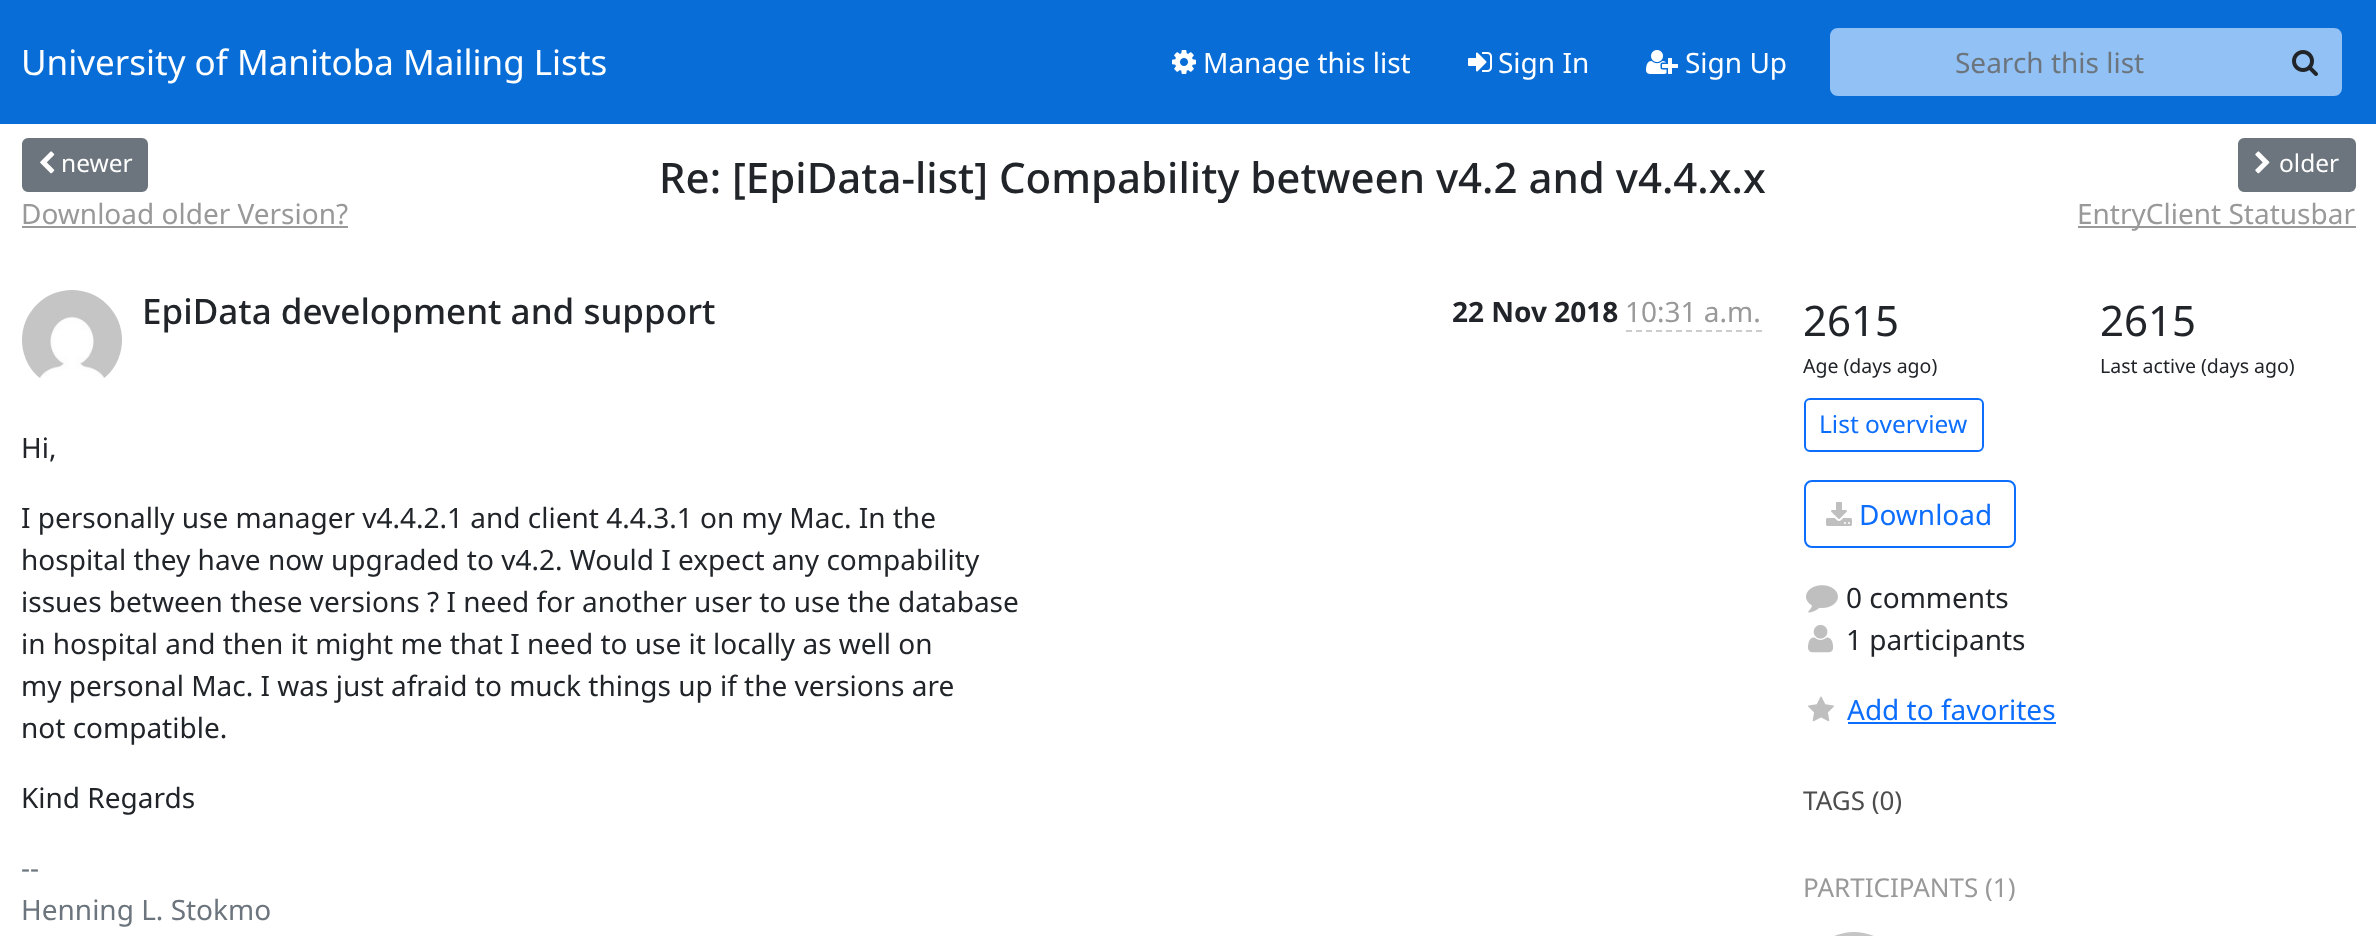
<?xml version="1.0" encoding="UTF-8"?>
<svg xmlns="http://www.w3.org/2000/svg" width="2376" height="936">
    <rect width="100%" height="100%" fill="#FFFFFF"/>
    <rect x="0" y="0" width="2376" height="124" fill="#086DD7"/>
    <text x="21" y="75" font-family="Noto Sans" font-size="35" fill="#FFFFFF">University of Manitoba Mailing Lists</text>
    <image x="1172" y="50" width="24" height="24" href="img_01.png"/>
    <text x="1203" y="73" font-family="Noto Sans" font-size="28" fill="#FFFFFF">Manage this list</text>
    <image x="1468" y="52" width="24" height="20" href="img_02.png"/>
    <text x="1498" y="73" font-family="Noto Sans" font-size="28" fill="#FFFFFF">Sign In</text>
    <image x="1646" y="50" width="32" height="24" href="img_03.png"/>
    <text x="1685" y="73" font-family="Noto Sans" font-size="28" fill="#FFFFFF">Sign Up</text>
    <path d="M 1838 28 H 2272 V 96 H 1838 C 1833.5 96 1830 92.5 1830 88 V 36 C 1830 31.5 1833.5 28 1838 28 Z" fill="#92C2F5"/>
    <text x="1955" y="73" font-family="Noto Sans" font-size="28" fill="#6C757D">Search this list</text>
    <path d="M 2270 28 H 2334 C 2338.5 28 2342 31.5 2342 36 V 88 C 2342 92.5 2338.5 96 2334 96 H 2270 Z" fill="#92C2F5"/>
    <image x="2292" y="50" width="26" height="26" href="img_04.png"/>
    <rect x="23" y="139" width="124" height="52" rx="5" fill="#6C757D" stroke="#6C757D" stroke-width="2"/>
    <image x="40" y="151" width="15" height="23" href="img_05.png"/>
    <text x="61" y="172" font-family="Noto Sans" font-size="24.5" fill="#FFFFFF">newer</text>
    <text x="21" y="224" font-family="Noto Sans" font-size="28" fill="#999999">Download older Version?</text>
    <rect x="22" y="226" width="326" height="2" fill="#999999"/>
    <text x="659" y="193" font-family="Noto Sans" font-size="42" font-weight="500" fill="#212529">Re: [EpiData-list] Compability between v4.2 and v4.4.x.x</text>
    <rect x="2239" y="139" width="116" height="52" rx="5" fill="#6C757D" stroke="#6C757D" stroke-width="2"/>
    <image x="2255" y="151" width="15" height="23" href="img_06.png"/>
    <text x="2279" y="172" font-family="Noto Sans" font-size="24.5" fill="#FFFFFF">older</text>
    <rect x="2078" y="226" width="278" height="2" fill="#999999"/>
    <text x="2077" y="224" font-family="Noto Sans" font-size="28" fill="#999999">EntryClient Statusbar</text>
    <image x="22" y="290" width="100" height="89" href="img_07.png"/>
    <text x="142" y="324" font-family="Noto Sans" font-size="35" font-weight="500" fill="#212529">EpiData development and support</text>
    <text x="1452" y="322" font-family="Noto Sans" font-size="28" font-weight="700" fill="#212529">22 Nov 2018</text>
    <text x="1625" y="322" font-family="Noto Sans" font-size="28" fill="#999999">10:31 a.m.</text>
    <path d="M 1626 331 H 1762" fill="none" stroke="#CCCCCC" stroke-width="2" stroke-dasharray="6 4"/>
    <text x="21" y="458" font-family="Noto Sans" font-size="28" fill="#212529">Hi,</text>
    <text font-family="Noto Sans" font-size="28" fill="#212529">
        <tspan x="21" y="528">I personally use manager v4.4.2.1 and client 4.4.3.1 on my Mac. In the</tspan>
        <tspan x="21" y="570">hospital they have now upgraded to v4.2. Would I expect any compability</tspan>
        <tspan x="21" y="612">issues between these versions ? I need for another user to use the database</tspan>
        <tspan x="21" y="654">in hospital and then it might me that I need to use it locally as well on</tspan>
        <tspan x="21" y="696">my personal Mac. I was just afraid to muck things up if the versions are</tspan>
        <tspan x="21" y="738">not compatible.</tspan>
    </text>
    <text x="21" y="808" font-family="Noto Sans" font-size="28" fill="#212529">Kind Regards</text>
    <text font-family="Noto Sans" font-size="28" fill="#6C757D">
        <tspan x="21" y="878">--</tspan>
        <tspan x="21" y="920">Henning L. Stokmo</tspan>
    </text>
    <text x="1803" y="336" font-family="Noto Sans" font-size="42" fill="#212529">2615</text>
    <text x="1803" y="373" font-family="Noto Sans" font-size="19.5" fill="#212529">Age (days ago)</text>
    <text x="2100" y="336" font-family="Noto Sans" font-size="42" fill="#212529">2615</text>
    <text x="2100" y="373" font-family="Noto Sans" font-size="19.5" fill="#212529">Last active (days ago)</text>
    <rect x="1805" y="399" width="178" height="52" rx="5" fill="none" stroke="#0D6EFD" stroke-width="2"/>
    <text x="1819" y="433" font-family="Noto Sans" font-size="24.5" fill="#0D6EFD">List overview</text>
    <rect x="1805" y="481" width="210" height="66" rx="7" fill="none" stroke="#0D6EFD" stroke-width="2"/>
    <image x="1826" y="502" width="26" height="24" href="img_08.png"/>
    <text x="1859" y="525" font-family="Noto Sans" font-size="28" fill="#0D6EFD">Download</text>
    <image x="1806" y="585" width="32" height="28" href="img_09.png"/>
    <text x="1846" y="608" font-family="Noto Sans" font-size="28" fill="#212529">0 comments</text>
    <image x="1808" y="624" width="26" height="29" href="img_10.png"/>
    <text x="1846" y="650" font-family="Noto Sans" font-size="28" fill="#212529">1 participants</text>
    <image x="1808" y="696" width="26" height="26" href="img_11.png"/>
    <text x="1847" y="720" font-family="Noto Sans" font-size="28" fill="#0D6EFD">Add to favorites</text>
    <rect x="1848" y="722" width="208" height="2" fill="#0D6EFD"/>
    <text x="1803" y="810" font-family="Noto Sans" font-size="26" fill="#4D4D4D">TAGS (0)</text>
    <text x="1803" y="897" font-family="Noto Sans" font-size="26" fill="#999999">PARTICIPANTS (1)</text>
    <image x="1834" y="932" width="40" height="4" href="img_12.png"/>
</svg>
